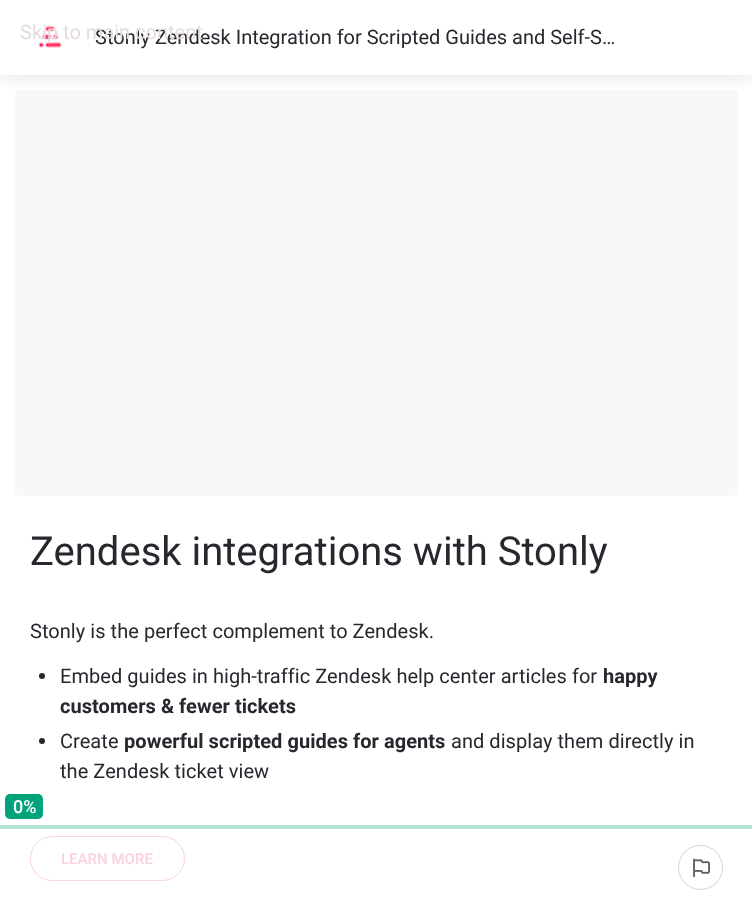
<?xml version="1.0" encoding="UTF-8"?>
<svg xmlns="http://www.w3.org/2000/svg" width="752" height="910">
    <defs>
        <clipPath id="clip1"><rect x="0" y="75" width="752" height="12"/></clipPath>
        <filter id="blur1" x="-50%" y="-200%" width="200%" height="500%"><feGaussianBlur stdDeviation="12.5"/></filter>
    </defs>
    <rect width="100%" height="100%" fill="#FFFFFF"/>
    <rect x="15" y="90" width="723" height="406" rx="5" fill="#F8F8F9"/>
    <g clip-path="url(#clip1)">
        <rect x="0" y="0" width="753" height="75" fill="#000000" fill-opacity="0.12" filter="url(#blur1)"/>
    </g>
    <image x="38" y="26" width="24" height="22" href="img_01.png"/>
    <text x="95" y="44" font-family="Roboto" font-size="20" fill="#26282E">Stonly Zendesk Integration for Scripted Guides and Self-S…</text>
    <text x="20" y="39" font-family="Roboto" font-size="20" fill="#E5DCDF">Skip to main content</text>
    <rect x="5" y="794" width="38" height="25" rx="5" fill="#00A37A"/>
    <text x="13" y="813" font-family="Roboto" font-size="18" font-weight="500" fill="#FFFFFF">0%</text>
    <rect x="0" y="825" width="752" height="4" fill="#B3E3D7"/>
    <circle cx="700.5" cy="867.5" r="22" fill="none" stroke="#D3D5DA"/>
    <image x="693" y="858" width="17" height="20" href="img_02.png"/>
    <text x="30" y="565" font-family="Roboto" font-size="40" fill="#26282E">Zendesk integrations with Stonly</text>
    <text x="30" y="638" font-family="Roboto" font-size="20" letter-spacing="0.05" fill="#26282E">Stonly is the perfect complement to Zendesk.</text>
    <circle cx="42" cy="676" r="3" fill="#26282E"/>
    <text x="60" y="683" font-family="Roboto" font-size="20" letter-spacing="0.05" fill="#26282E">Embed guides in high-traffic Zendesk help center articles for</text>
    <text x="603" y="683" font-family="Roboto" font-size="20" font-weight="700" letter-spacing="0.05" fill="#26282E">happy</text>
    <text x="60" y="713" font-family="Roboto" font-size="20" font-weight="700" letter-spacing="0.05" fill="#26282E">customers &amp; fewer tickets</text>
    <circle cx="42" cy="741" r="3" fill="#26282E"/>
    <text x="60" y="748" font-family="Roboto" font-size="20" letter-spacing="0.05" fill="#26282E">Create</text>
    <text x="124" y="748" font-family="Roboto" font-size="20" font-weight="700" letter-spacing="0.05" fill="#26282E">powerful scripted guides for agents</text>
    <text x="451" y="748" font-family="Roboto" font-size="20" letter-spacing="0.05" fill="#26282E">and display them directly in</text>
    <text x="60" y="778" font-family="Roboto" font-size="20" letter-spacing="0.05" fill="#26282E">the Zendesk ticket view</text>
    <rect x="30.5" y="836.5" width="154" height="44" rx="22" fill="none" stroke="#FBD3E2"/>
    <text x="61" y="864" font-family="Roboto" font-size="15" font-weight="600" fill="#FBD3E2">LEARN MORE</text>
</svg>
